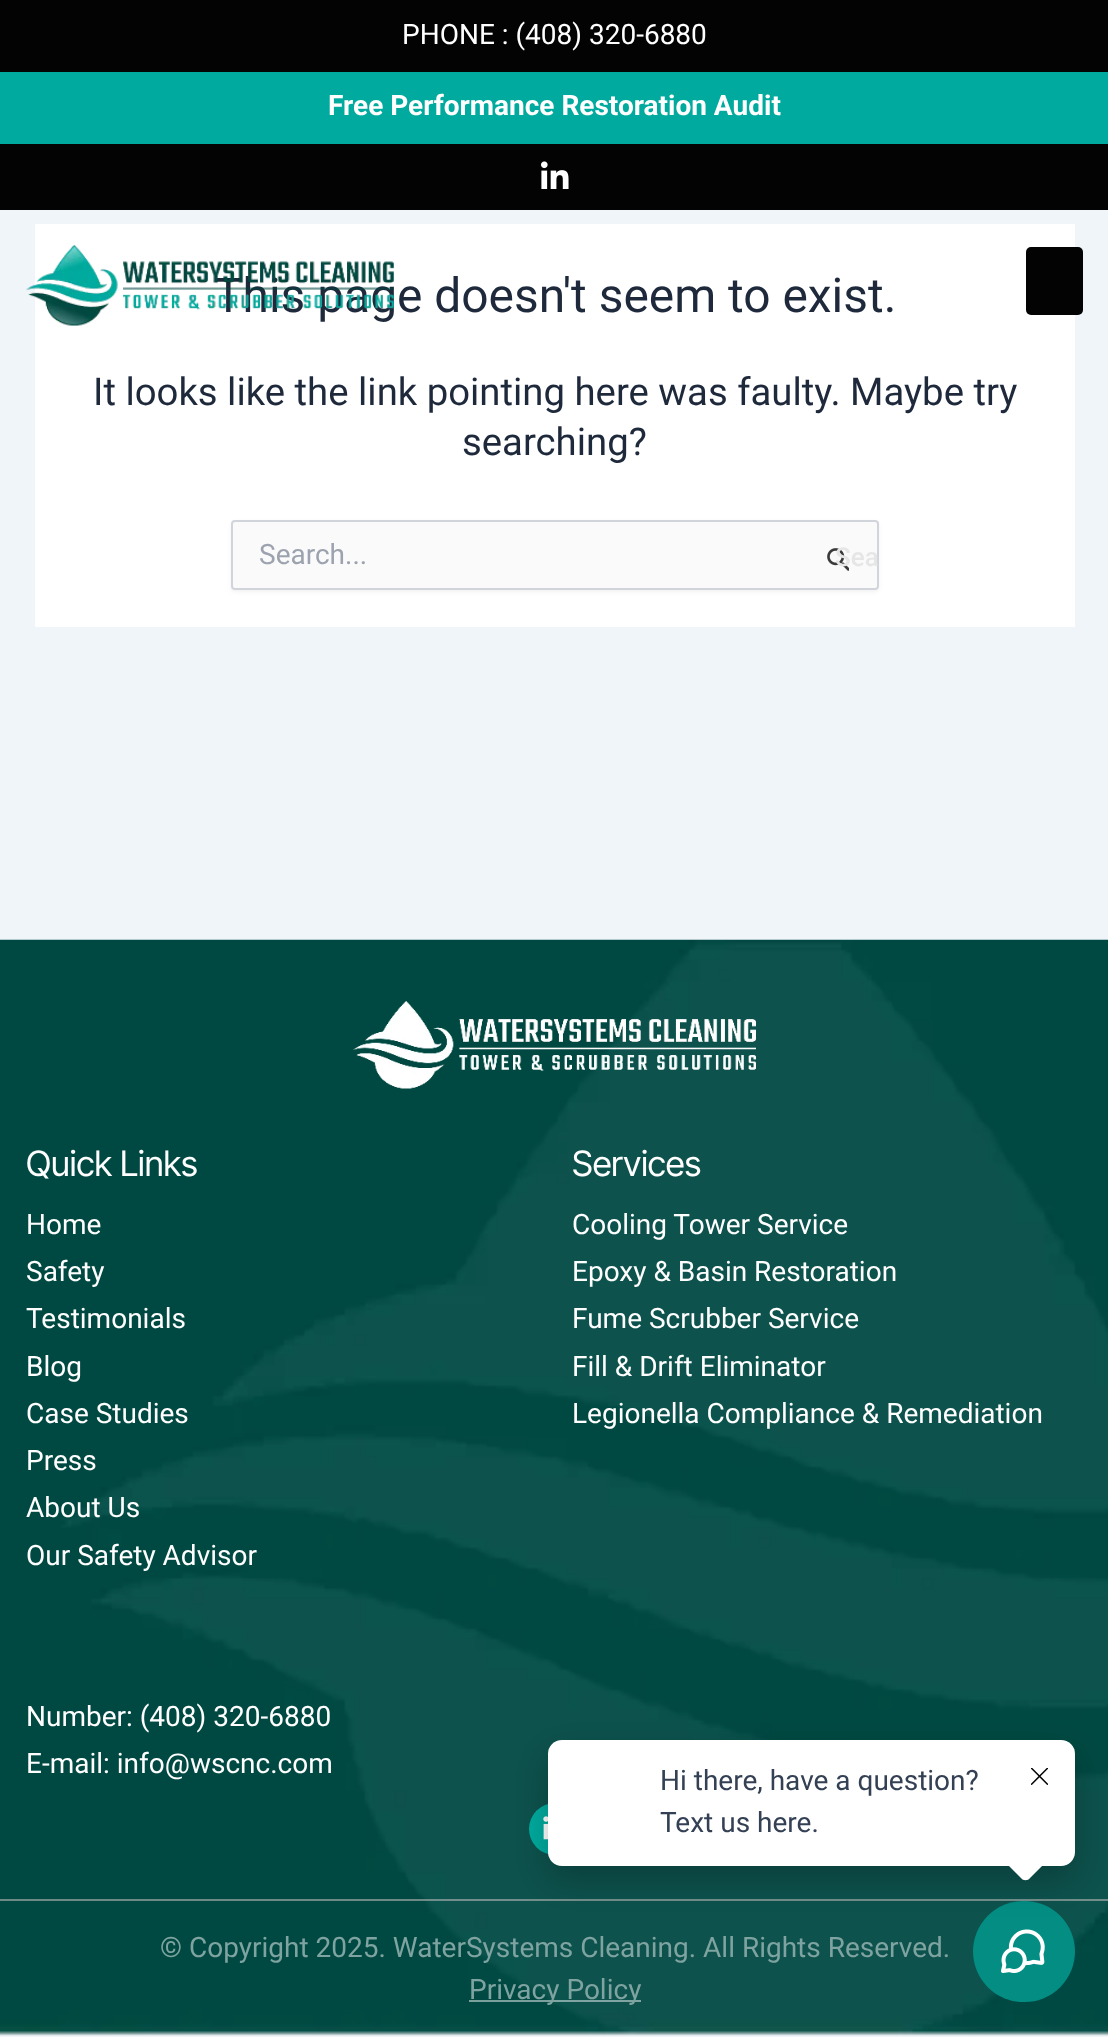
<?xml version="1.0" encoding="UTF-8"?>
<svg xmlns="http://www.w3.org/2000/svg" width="1108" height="2037">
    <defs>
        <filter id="blur1" x="-50%" y="-200%" width="200%" height="500%"><feGaussianBlur stdDeviation="2"/></filter>
        <filter id="blur2" x="-50%" y="-200%" width="200%" height="500%"><feGaussianBlur stdDeviation="17.5"/></filter>
    </defs>
    <rect width="100%" height="100%" fill="#F0F5FA"/>
    <rect x="0" y="0" width="1108" height="210" fill="#030303"/>
    <text x="402" y="44" font-family="Roboto" font-size="28" fill="#FFFFFF">PHONE : (408) 320-6880</text>
    <rect x="0" y="72" width="1108" height="72" fill="#00AA9E"/>
    <text x="328" y="115" font-family="Roboto" font-size="28" font-weight="700" fill="#FFFFFF">Free Performance Restoration Audit</text>
    <image x="541" y="161" width="28" height="28" href="img_01.png"/>
    <rect x="35" y="224" width="1040" height="403" fill="#FFFFFF"/>
    <text x="214" y="312" font-family="Roboto" font-size="47.9" fill="#1E293B">This page doesn't seem to exist.</text>
    <image x="26" y="245" width="368" height="81" href="img_02.png"/>
    <rect x="1026" y="247" width="57" height="68" rx="5" fill="#030303"/>
    <text x="93" y="405" font-family="Roboto" font-size="38.3" fill="#1E293B">It looks like the link pointing here was faulty. Maybe try</text>
    <text x="462" y="455" font-family="Roboto" font-size="38.3" fill="#1E293B">searching?</text>
    <rect x="231" y="522" width="648" height="70" rx="4" fill="#000000" fill-opacity="0.05" filter="url(#blur1)"/>
    <rect x="232" y="521" width="646" height="68" rx="3" fill="#FAFAFA" stroke="#D1D5DB" stroke-width="2"/>
    <text x="259" y="564" font-family="Roboto" font-size="28" fill="#9CA3AF">Search...</text>
    <image x="827" y="548" width="22" height="23" href="img_03.png"/>
    <text x="835" y="566" font-family="Roboto" font-size="26" font-weight="500" fill="#E6E6E6">Sea</text>
    <image x="0" y="939" width="1108" height="1097" href="img_04.png"/>
    <image x="353" y="1001" width="403" height="88" href="img_05.png"/>
    <text x="26" y="1176" font-family="Inter Tight" font-size="35" fill="#FFFFFF">Quick Links</text>
    <text font-family="Roboto" font-size="28" fill="#FFFFFF">
        <tspan x="26" y="1234">Home</tspan>
        <tspan x="26" y="1281">Safety</tspan>
        <tspan x="26" y="1328">Testimonials</tspan>
        <tspan x="26" y="1376">Blog</tspan>
        <tspan x="26" y="1423">Case Studies</tspan>
        <tspan x="26" y="1470">Press</tspan>
        <tspan x="26" y="1517">About Us</tspan>
        <tspan x="26" y="1565">Our Safety Advisor</tspan>
    </text>
    <text x="572" y="1176" font-family="Inter Tight" font-size="35" fill="#FFFFFF">Services</text>
    <text font-family="Roboto" font-size="28" fill="#FFFFFF">
        <tspan x="572" y="1234">Cooling Tower Service</tspan>
        <tspan x="572" y="1281">Epoxy &amp; Basin Restoration</tspan>
        <tspan x="572" y="1328">Fume Scrubber Service</tspan>
        <tspan x="572" y="1376">Fill &amp; Drift Eliminator</tspan>
        <tspan x="572" y="1423">Legionella Compliance &amp; Remediation</tspan>
    </text>
    <text font-family="Roboto" font-size="28" fill="#FFFFFF">
        <tspan x="26" y="1726">Number: (408) 320-6880</tspan>
        <tspan x="26" y="1773">E-mail: info@wscnc.com</tspan>
    </text>
    <circle cx="555" cy="1829" r="26" fill="#00AA9E"/>
    <image x="543" y="1816" width="5" height="24" href="img_06.png"/>
    <rect x="0" y="1899" width="1108" height="2" fill="#B3B3B3" fill-opacity="0.61"/>
    <text x="160" y="1957" font-family="Roboto" font-size="28" fill="#7EA3A0">© Copyright 2025. WaterSystems Cleaning. All Rights Reserved.</text>
    <rect x="469" y="2000" width="172" height="2" fill="#FFFFFF" fill-opacity="0.48"/>
    <text x="469" y="1999" font-family="Roboto" font-size="28" fill="#7EA3A0">Privacy Policy</text>
    <rect x="973" y="1901" width="102" height="101" rx="50.5" fill="#038D83"/>
    <image x="1001" y="1929" width="44" height="44" href="img_08.png"/>
    <rect x="548" y="1754" width="527" height="126" rx="14" fill="#000000" fill-opacity="0.24" filter="url(#blur2)"/>
    <rect x="548" y="1740" width="527" height="126" rx="14" fill="#FFFFFF"/>
    <text font-family="Roboto" font-size="28" fill="#344054">
        <tspan x="660" y="1790">Hi there, have a question?</tspan>
        <tspan x="660" y="1832">Text us here.</tspan>
    </text>
    <path d="M 1030 1839 L 1045 1854 C 1048 1856 1048 1861 1045 1863 L 1030 1878 C 1028 1881 1023 1881 1021 1878 L 1006 1863 C 1003 1861 1003 1856 1006 1854 L 1021 1839 C 1023 1836 1028 1836 1030 1839 Z" fill="#FFFFFF"/>
    <image x="1031" y="1768" width="17" height="17" href="img_07.png"/>
</svg>
